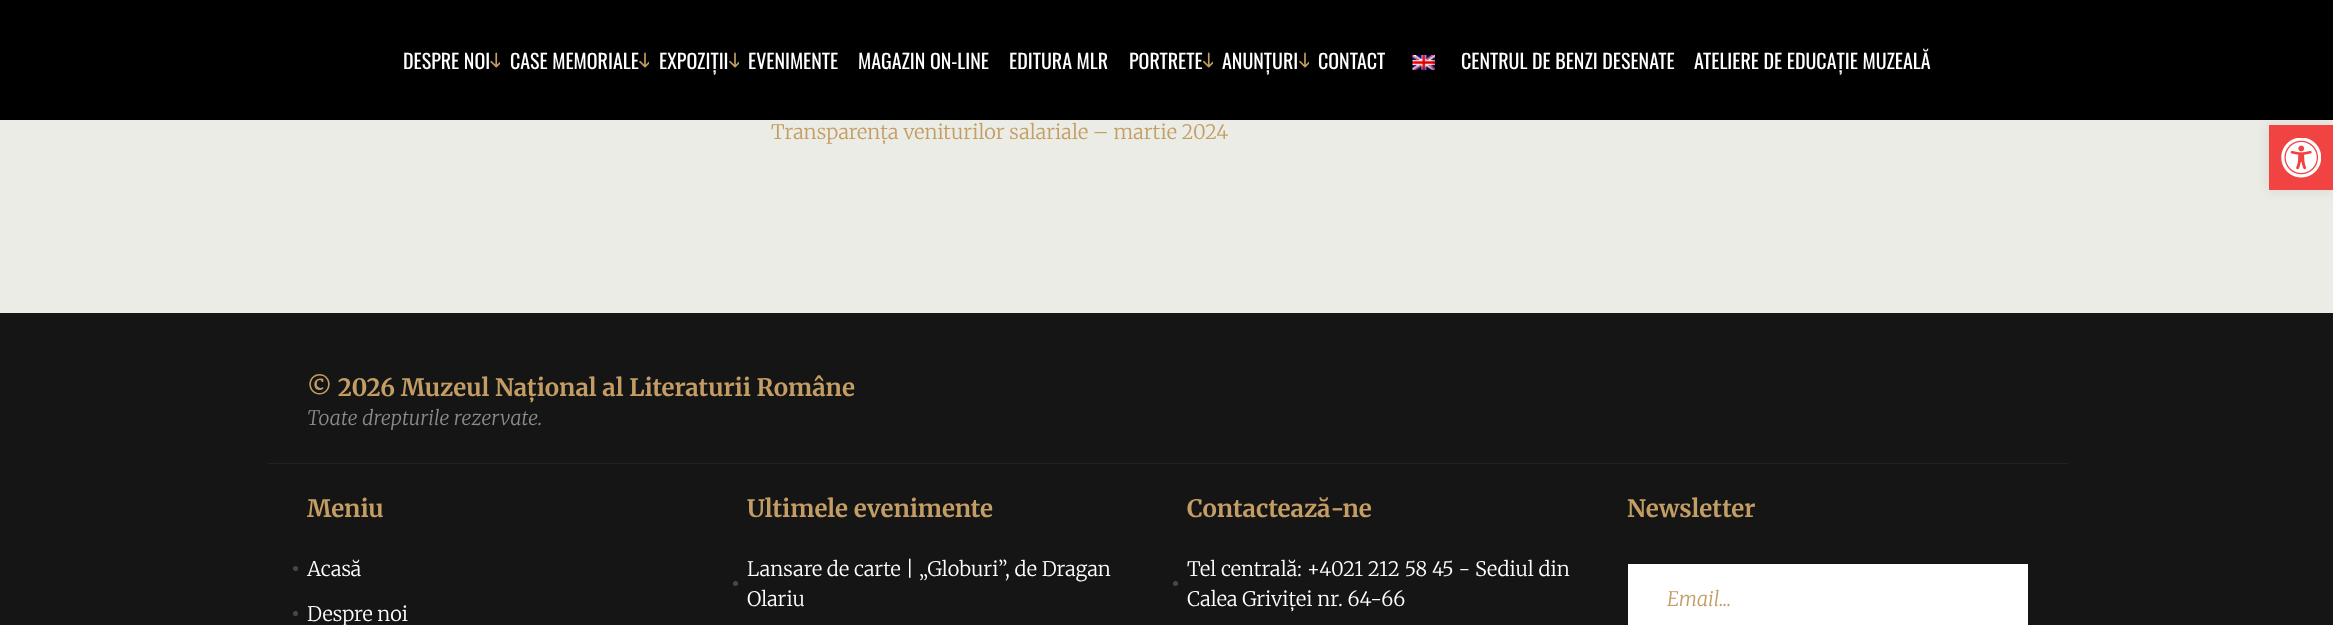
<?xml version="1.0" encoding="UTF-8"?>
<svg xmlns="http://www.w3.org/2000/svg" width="2333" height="625">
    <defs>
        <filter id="blur1" x="-50%" y="-200%" width="200%" height="500%"><feGaussianBlur stdDeviation="6"/></filter>
    </defs>
    <rect width="100%" height="100%" fill="#151515"/>
    <rect x="0" y="0" width="2333" height="120" fill="#000000"/>
    <image x="490" y="52" width="10" height="16" href="img_01.png"/>
    <text x="403" y="69" font-family="Oswald" font-size="20" fill="#FFFFFF">DESPRE NOI</text>
    <image x="639" y="52" width="10" height="16" href="img_02.png"/>
    <text x="510" y="69" font-family="Oswald" font-size="20" fill="#FFFFFF">CASE MEMORIALE</text>
    <image x="729" y="52" width="10" height="16" href="img_02.png"/>
    <text x="659" y="69" font-family="Oswald" font-size="20" fill="#FFFFFF">EXPOZIȚII</text>
    <text x="748" y="69" font-family="Oswald" font-size="20" fill="#FFFFFF">EVENIMENTE</text>
    <text x="858" y="69" font-family="Oswald" font-size="20" fill="#FFFFFF">MAGAZIN ON-LINE</text>
    <text x="1009" y="69" font-family="Oswald" font-size="20" fill="#FFFFFF">EDITURA MLR</text>
    <image x="1203" y="52" width="10" height="16" href="img_03.png"/>
    <text x="1129" y="69" font-family="Oswald" font-size="20" fill="#FFFFFF">PORTRETE</text>
    <image x="1299" y="52" width="10" height="16" href="img_02.png"/>
    <text x="1222" y="69" font-family="Oswald" font-size="20" fill="#FFFFFF">ANUNȚURI</text>
    <text x="1318" y="69" font-family="Oswald" font-size="20" fill="#FFFFFF">CONTACT</text>
    <image x="1412" y="55" width="23" height="15" href="img_04.png"/>
    <text x="1461" y="69" font-family="Oswald" font-size="20" fill="#FFFFFF">CENTRUL DE BENZI DESENATE</text>
    <text x="1694" y="69" font-family="Oswald" font-size="20" fill="#FFFFFF">ATELIERE DE EDUCAȚIE MUZEALĂ</text>
    <rect x="0" y="120" width="2333" height="193" fill="#EBECE6"/>
    <text x="771" y="139" font-family="Merriweather" font-size="20" font-weight="300" fill="#C39D63">Transparența veniturilor salariale – martie 2024</text>
    <rect x="2269" y="125" width="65" height="65" fill="#000000" fill-opacity="0.1" filter="url(#blur1)"/>
    <rect x="2269" y="125" width="64" height="65" fill="#F24343"/>
    <image x="2281" y="138" width="40" height="40" href="img_05.png"/>
    <rect x="268" y="463" width="1800" height="1" fill="#222222"/>
    <text x="307" y="396" font-family="Merriweather" font-size="24" font-weight="700" fill="#C39D63">© 2026 Muzeul Național al Literaturii Române</text>
    <text x="307" y="425" font-family="Merriweather" font-size="20" font-weight="300" font-style="italic" fill="#8B8B8B">Toate drepturile rezervate.</text>
    <text x="307" y="517" font-family="Merriweather" font-size="24" font-weight="700" fill="#C39D63">Meniu</text>
    <circle cx="295.5" cy="568.5" r="2.5" fill="#484848"/>
    <text x="307" y="576" font-family="Merriweather" font-size="20" font-weight="300" fill="#FFFFFF">Acasă</text>
    <circle cx="295.5" cy="613.5" r="2.5" fill="#484848"/>
    <text x="307" y="621" font-family="Merriweather" font-size="20" font-weight="300" fill="#FFFFFF">Despre noi</text>
    <text x="747" y="517" font-family="Merriweather" font-size="24" font-weight="700" fill="#C39D63">Ultimele evenimente</text>
    <text x="747" y="576" font-family="Merriweather" font-size="20" font-weight="300" fill="#FFFFFF">Lansare de carte | „Globuri”, de Dragan</text>
    <circle cx="735.5" cy="583.5" r="2.5" fill="#484848"/>
    <text x="747" y="606" font-family="Merriweather" font-size="20" font-weight="300" fill="#FFFFFF">Olariu</text>
    <text x="1187" y="517" font-family="Merriweather" font-size="24" font-weight="700" fill="#C39D63">Contactează-ne</text>
    <text x="1187" y="576" font-family="Merriweather" font-size="20" font-weight="300" fill="#FFFFFF">Tel centrală: +4021 212 58 45 - Sediul din</text>
    <circle cx="1175.5" cy="583.5" r="2.5" fill="#484848"/>
    <text x="1187" y="606" font-family="Merriweather" font-size="20" font-weight="300" fill="#FFFFFF">Calea Griviței nr. 64-66</text>
    <text x="1627" y="517" font-family="Merriweather" font-size="24" font-weight="700" fill="#C39D63">Newsletter</text>
    <rect x="1628" y="564" width="400" height="61" fill="#FFFFFF"/>
    <text x="1667" y="606" font-family="Merriweather" font-size="20" font-weight="300" font-style="italic" fill="#C39D63">Email...</text>
</svg>
